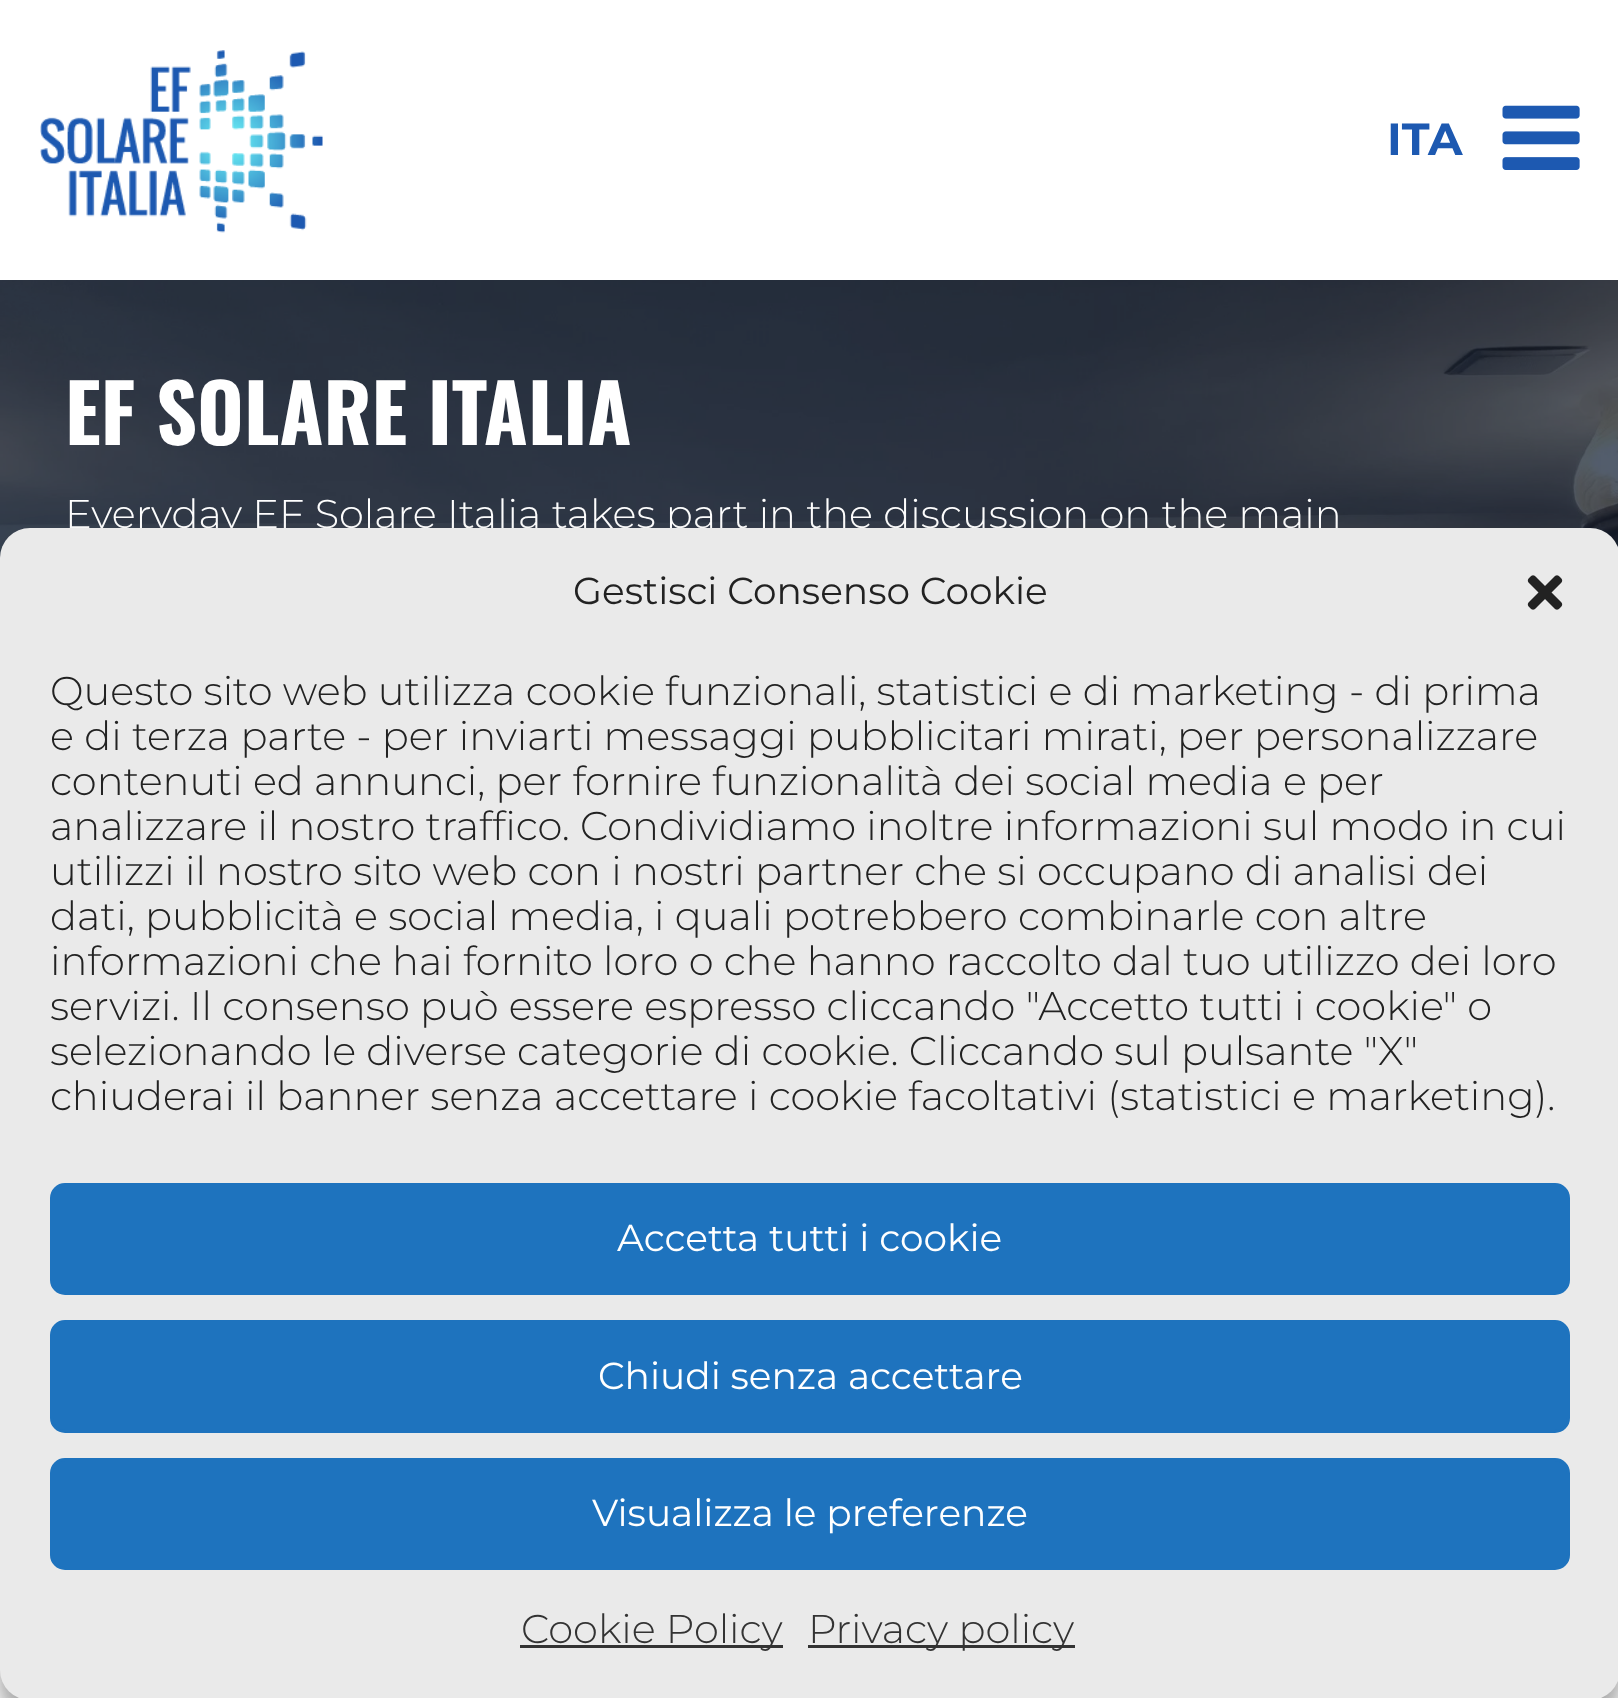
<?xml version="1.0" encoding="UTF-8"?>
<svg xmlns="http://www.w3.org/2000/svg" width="1618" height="1698">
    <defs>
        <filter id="blur1" x="-50%" y="-200%" width="200%" height="500%"><feGaussianBlur stdDeviation="7.5"/></filter>
        <filter id="blur2" x="-50%" y="-200%" width="200%" height="500%"><feGaussianBlur stdDeviation="25"/></filter>
    </defs>
    <rect width="100%" height="100%" fill="#FFFFFF"/>
    <image x="40" y="50" width="283" height="183" href="img_01.png"/>
    <text x="1387" y="155" font-family="Montserrat" font-size="45" font-weight="700" fill="#1D59B1">ITA</text>
    <image x="1502" y="105" width="78" height="65" href="img_02.png"/>
    <image x="0" y="280" width="1618" height="278" href="img_03.png"/>
    <text x="65" y="445" font-family="Oswald" font-size="80" font-weight="700" fill="#FFFFFF">EF SOLARE ITALIA</text>
    <text x="65" y="528" font-family="Montserrat" font-size="40" font-weight="300" fill="#FFFFFF">Everyday EF Solare Italia takes part in the discussion on the main</text>
    <rect x="0" y="543" width="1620" height="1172" rx="30" fill="#000000" fill-opacity="0.23" filter="url(#blur1)"/>
    <rect x="0" y="553" width="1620" height="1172" rx="30" fill="#000000" fill-opacity="0.19" filter="url(#blur2)"/>
    <rect x="0" y="528" width="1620" height="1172" rx="30" fill="#EAEAEA"/>
    <text x="573" y="604" font-family="Montserrat" font-size="37.5" fill="#222222">Gestisci Consenso Cookie</text>
    <image x="1527" y="575" width="36" height="35" href="img_04.png"/>
    <text font-family="Montserrat" font-size="40" font-weight="300" fill="#222222">
        <tspan x="50" y="705">Questo sito web utilizza cookie funzionali, statistici e di marketing - di prima</tspan>
        <tspan x="50" y="750">e di terza parte - per inviarti messaggi pubblicitari mirati, per personalizzare</tspan>
        <tspan x="50" y="795">contenuti ed annunci, per fornire funzionalità dei social media e per</tspan>
        <tspan x="50" y="840">analizzare il nostro traffico. Condividiamo inoltre informazioni sul modo in cui</tspan>
        <tspan x="50" y="885">utilizzi il nostro sito web con i nostri partner che si occupano di analisi dei</tspan>
        <tspan x="50" y="930">dati, pubblicità e social media, i quali potrebbero combinarle con altre</tspan>
        <tspan x="50" y="975">informazioni che hai fornito loro o che hanno raccolto dal tuo utilizzo dei loro</tspan>
        <tspan x="50" y="1020">servizi. Il consenso può essere espresso cliccando "Accetto tutti i cookie" o</tspan>
        <tspan x="50" y="1065">selezionando le diverse categorie di cookie. Cliccando sul pulsante "X"</tspan>
        <tspan x="50" y="1110">chiuderai il banner senza accettare i cookie facoltativi (statistici e marketing).</tspan>
    </text>
    <rect x="51.5" y="1184.5" width="1517" height="109" rx="13.5" fill="#1E73BE" stroke="#1E73BE" stroke-width="3"/>
    <text x="617" y="1251" font-family="Montserrat" font-size="37.5" fill="#FFFFFF">Accetta tutti i cookie</text>
    <rect x="51.5" y="1321.5" width="1517" height="110" rx="13.5" fill="#1E73BE" stroke="#1E73BE" stroke-width="3"/>
    <text x="598" y="1389" font-family="Montserrat" font-size="37.5" fill="#FFFFFF">Chiudi senza accettare</text>
    <rect x="51.5" y="1459.5" width="1517" height="109" rx="13.5" fill="#1E73BE" stroke="#1E73BE" stroke-width="3"/>
    <text x="592" y="1526" font-family="Montserrat" font-size="37.5" fill="#FFFFFF">Visualizza le preferenze</text>
    <rect x="520" y="1645" width="263" height="3" fill="#333333"/>
    <text x="521" y="1643" font-family="Montserrat" font-size="40" font-weight="300" fill="#333333">Cookie Policy</text>
    <rect x="808" y="1645" width="267" height="3" fill="#333333"/>
    <text x="808" y="1643" font-family="Montserrat" font-size="40" font-weight="300" fill="#333333">Privacy policy</text>
</svg>
